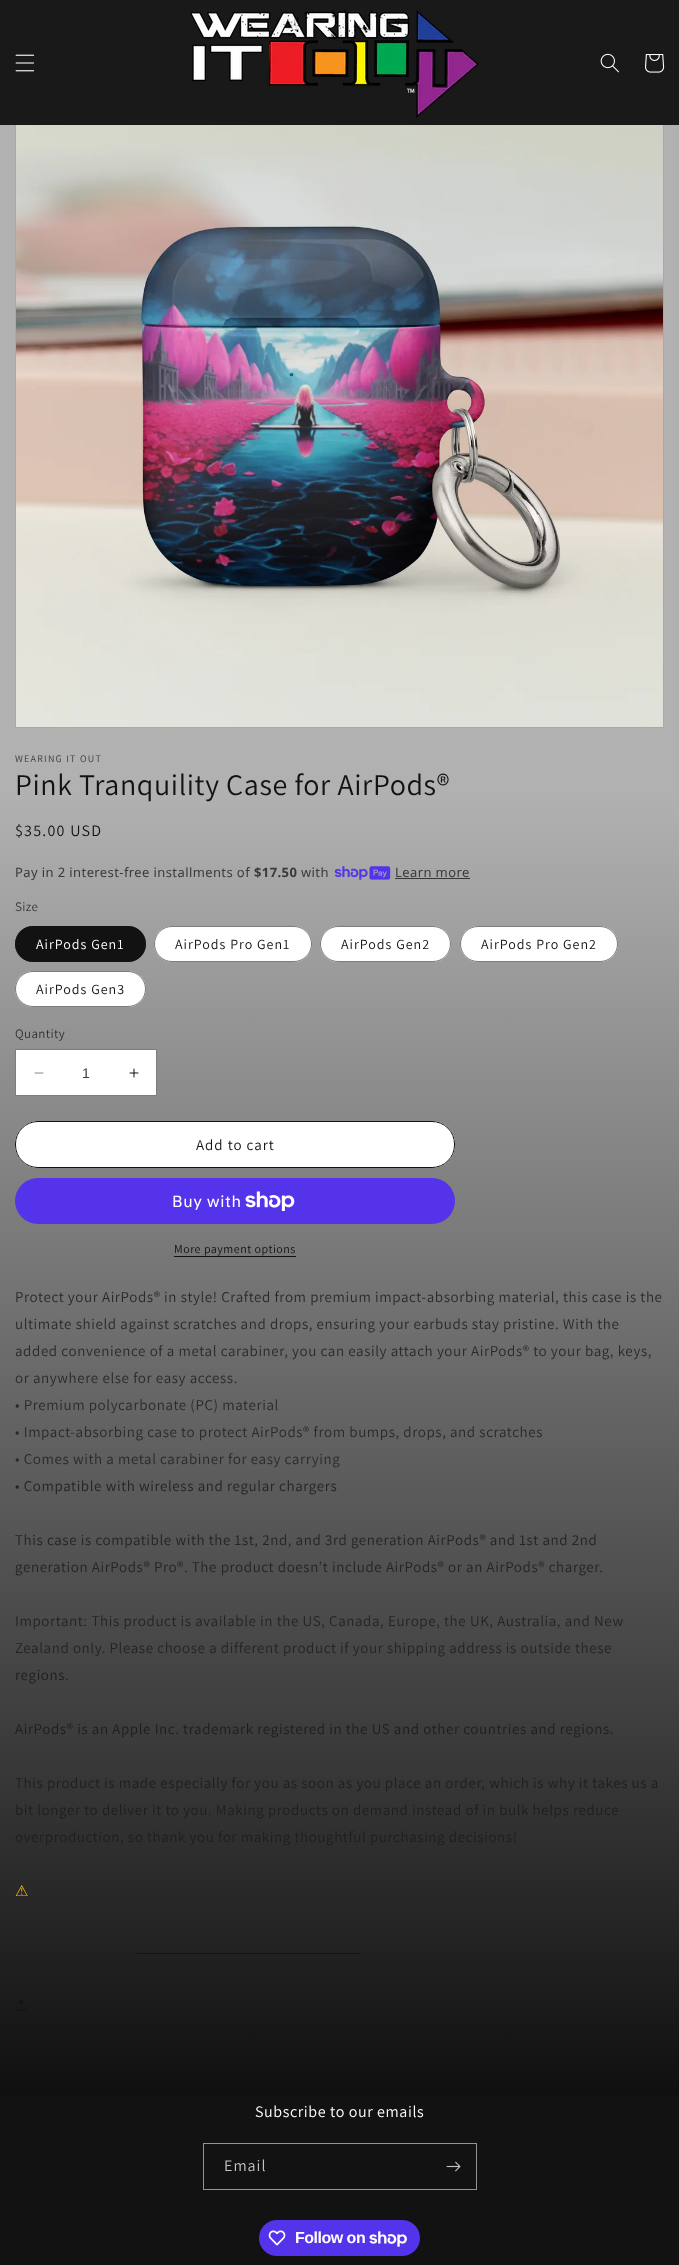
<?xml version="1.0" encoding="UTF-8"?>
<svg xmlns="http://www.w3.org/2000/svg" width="679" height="2265">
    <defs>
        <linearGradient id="g1" gradientUnits="userSpaceOnUse" x1="340" y1="2265" x2="340" y2="0"><stop offset="0.02" stop-color="#000000"/><stop offset="0.65" stop-color="#B1B1B1"/></linearGradient>
        <linearGradient id="g2" gradientUnits="userSpaceOnUse" x1="340" y1="2265" x2="340" y2="0"><stop offset="0.79" stop-color="#B1B1B1"/><stop offset="0.91" stop-color="#191919"/></linearGradient>
    </defs>
    <rect width="100%" height="100%" fill="#FFFFFF"/>
    <rect x="0" y="125" width="679" height="1971" fill="url(#g1)"/>
    <rect x="15.5" y="79.5" width="648" height="648" fill="none" stroke="#A9A9A9"/>
    <rect x="0" y="0" width="679" height="125" fill="url(#g2)"/>
    <image x="15" y="54" width="20" height="18" href="img_01.png"/>
    <image x="190" y="10" width="289" height="108" href="img_02.png"/>
    <image x="600" y="53" width="19" height="20" href="img_03.png"/>
    <image x="645" y="54" width="20" height="19" href="img_04.png"/>
    <image x="16" y="125" width="647" height="602" href="img_05.png"/>
    <text x="15" y="762" font-family="Assistant" font-size="10" letter-spacing="1.25" fill="#3A3A3A">WEARING IT OUT</text>
    <text x="15" y="795" font-family="Assistant" font-size="30" letter-spacing="0.6" fill="#121212">Pink Tranquility Case for AirPods®</text>
    <text x="15" y="836" font-family="Assistant" font-size="16" letter-spacing="1.25" fill="#121212">$35.00 USD</text>
    <text x="15" y="877" font-family="Noto Sans" font-size="13" letter-spacing="0.4" fill="#3A3A3A">Pay in 2 interest-free installments of</text>
    <text x="254" y="877" font-family="Noto Sans" font-size="13" font-weight="700" letter-spacing="0.4" fill="#3A3A3A">$17.50</text>
    <text x="301" y="877" font-family="Noto Sans" font-size="13" letter-spacing="0.4" fill="#3A3A3A">with</text>
    <image x="334" y="866" width="57" height="14" href="img_06.png"/>
    <text x="395" y="877" font-family="Noto Sans" font-size="13" letter-spacing="0.4" fill="#3A3A3A">Learn more</text>
    <rect x="395" y="878" width="75" height="1" fill="#373737"/>
    <text x="15" y="911" font-family="Assistant" font-size="13" letter-spacing="0.4" fill="#3A3A3A">Size</text>
    <rect x="15" y="926" width="131" height="36" rx="18" fill="#121212"/>
    <rect x="15.5" y="926.5" width="130" height="35" rx="17.5" fill="none" stroke="#121212" stroke-opacity="0.55"/>
    <text x="36" y="949" font-family="Assistant" font-size="14" letter-spacing="1" fill="#FFFFFF">AirPods Gen1</text>
    <rect x="154" y="926" width="158" height="36" rx="18" fill="#FFFFFF"/>
    <rect x="154.5" y="926.5" width="157" height="35" rx="17.5" fill="none" stroke="#121212" stroke-opacity="0.55"/>
    <text x="175" y="949" font-family="Assistant" font-size="14" letter-spacing="1" fill="#121212">AirPods Pro Gen1</text>
    <rect x="320" y="926" width="131" height="36" rx="18" fill="#FFFFFF"/>
    <rect x="320.5" y="926.5" width="130" height="35" rx="17.5" fill="none" stroke="#121212" stroke-opacity="0.55"/>
    <text x="341" y="949" font-family="Assistant" font-size="14" letter-spacing="1" fill="#121212">AirPods Gen2</text>
    <rect x="460" y="926" width="158" height="36" rx="18" fill="#FFFFFF"/>
    <rect x="460.5" y="926.5" width="157" height="35" rx="17.5" fill="none" stroke="#121212" stroke-opacity="0.55"/>
    <text x="481" y="949" font-family="Assistant" font-size="14" letter-spacing="1" fill="#121212">AirPods Pro Gen2</text>
    <rect x="15" y="971" width="131" height="36" rx="18" fill="#FFFFFF"/>
    <rect x="15.5" y="971.5" width="130" height="35" rx="17.5" fill="none" stroke="#121212" stroke-opacity="0.55"/>
    <text x="36" y="994" font-family="Assistant" font-size="14" letter-spacing="1" fill="#121212">AirPods Gen3</text>
    <text x="15" y="1038" font-family="Assistant" font-size="13" letter-spacing="0.4" fill="#323232">Quantity</text>
    <rect x="16" y="1050" width="140" height="45" fill="#FFFFFF"/>
    <image x="34" y="1072" width="10" height="2" href="img_07.png"/>
    <image x="129" y="1068" width="10" height="10" href="img_08.png"/>
    <rect x="15.5" y="1049.5" width="141" height="46" fill="none" stroke="#7D7D7D"/>
    <text x="82" y="1078" font-family="Liberation Sans" font-size="14" fill="#3A3A3A">1</text>
    <rect x="15" y="1121" width="440" height="47" rx="23" fill="#FFFFFF"/>
    <rect x="15.5" y="1121.5" width="439" height="46" rx="22.5" fill="none" stroke="#FFFFFF"/>
    <rect x="15.5" y="1121.5" width="439" height="46" rx="22.5" fill="none" stroke="#121212"/>
    <text x="196" y="1150" font-family="Assistant" font-size="15" letter-spacing="1" fill="#121212">Add to cart</text>
    <rect x="15" y="1178" width="440" height="46" rx="23" fill="#5433EB"/>
    <text x="172" y="1207" font-family="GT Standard" font-size="16" letter-spacing="0.6" fill="#FFFFFF">Buy with</text>
    <image x="245" y="1191" width="50" height="20" href="img_09.png"/>
    <text x="174" y="1253" font-family="Assistant" font-size="12" letter-spacing="0.5" fill="#121212">More payment options</text>
    <rect x="174" y="1256" width="122" height="1" fill="#121212"/>
    <text font-family="Assistant" font-size="15" letter-spacing="0.6" fill="#2A2A2A">
        <tspan x="15" y="1302">Protect your AirPods® in style! Crafted from premium impact-absorbing material, this case is the</tspan>
        <tspan x="15" y="1329">ultimate shield against scratches and drops, ensuring your earbuds stay pristine. With the</tspan>
        <tspan x="15" y="1356">added convenience of a metal carabiner, you can easily attach your AirPods® to your bag, keys,</tspan>
        <tspan x="15" y="1383">or anywhere else for easy access.</tspan>
        <tspan x="15" y="1410">• Premium polycarbonate (PC) material</tspan>
        <tspan x="15" y="1437">• Impact-absorbing case to protect AirPods® from bumps, drops, and scratches</tspan>
        <tspan x="15" y="1464">• Comes with a metal carabiner for easy carrying</tspan>
    </text>
    <text x="15" y="1491" font-family="Assistant" font-size="15" letter-spacing="0.6" fill="#242424">• Compatible with wireless and regular chargers</text>
    <text font-family="Assistant" font-size="15" letter-spacing="0.6" fill="#242424">
        <tspan x="15" y="1545">This case is compatible with the 1st, 2nd, and 3rd generation AirPods® and 1st and 2nd</tspan>
        <tspan x="15" y="1572">generation AirPods® Pro®. The product doesn’t include AirPods® or an AirPods® charger.</tspan>
    </text>
    <text font-family="Assistant" font-size="15" letter-spacing="0.6" fill="#242424">
        <tspan x="15" y="1626">Important: This product is available in the US, Canada, Europe, the UK, Australia, and New</tspan>
        <tspan x="15" y="1653">Zealand only. Please choose a different product if your shipping address is outside these</tspan>
    </text>
    <text x="15" y="1680" font-family="Assistant" font-size="15" letter-spacing="0.6" fill="#1E1E1E">regions.</text>
    <text x="15" y="1734" font-family="Assistant" font-size="15" letter-spacing="0.6" fill="#1E1E1E">AirPods® is an Apple Inc. trademark registered in the US and other countries and regions.</text>
    <text font-family="Assistant" font-size="15" letter-spacing="0.6" fill="#1E1E1E">
        <tspan x="15" y="1788">This product is made especially for you as soon as you place an order, which is why it takes us a</tspan>
        <tspan x="15" y="1815">bit longer to deliver it to you. Making products on demand instead of in bulk helps reduce</tspan>
        <tspan x="15" y="1842">overproduction, so thank you for making thoughtful purchasing decisions!</tspan>
    </text>
    <text x="15" y="1896" font-family="DejaVu Sans" font-size="15" letter-spacing="0.6" fill="#F7B500">⚠</text>
    <rect x="137" y="1953" width="223" height="1" fill="#141414"/>
    <image x="16" y="2000" width="11" height="11" href="img_10.png"/>
    <rect x="0" y="2096" width="679" height="169" fill="#121212"/>
    <text x="255" y="2117" font-family="Assistant" font-size="16" letter-spacing="0.6" fill="#FFFFFF">Subscribe to our emails</text>
    <rect x="203.5" y="2143.5" width="273" height="46" fill="none" stroke="#949494"/>
    <text x="224" y="2171" font-family="Assistant" font-size="16" letter-spacing="1" fill="#C4C4C4">Email</text>
    <image x="446" y="2161" width="15" height="11" href="img_11.png"/>
    <rect x="259" y="2220" width="161" height="36" rx="18" fill="#5433EB"/>
    <image x="268" y="2230" width="18" height="16" href="img_12.png"/>
    <text x="295" y="2243" font-family="Liberation Sans" font-size="16" font-weight="700" letter-spacing="-0.5" fill="#FFFFFF">Follow on</text>
    <image x="369" y="2231" width="38" height="16" href="img_13.png"/>
</svg>
